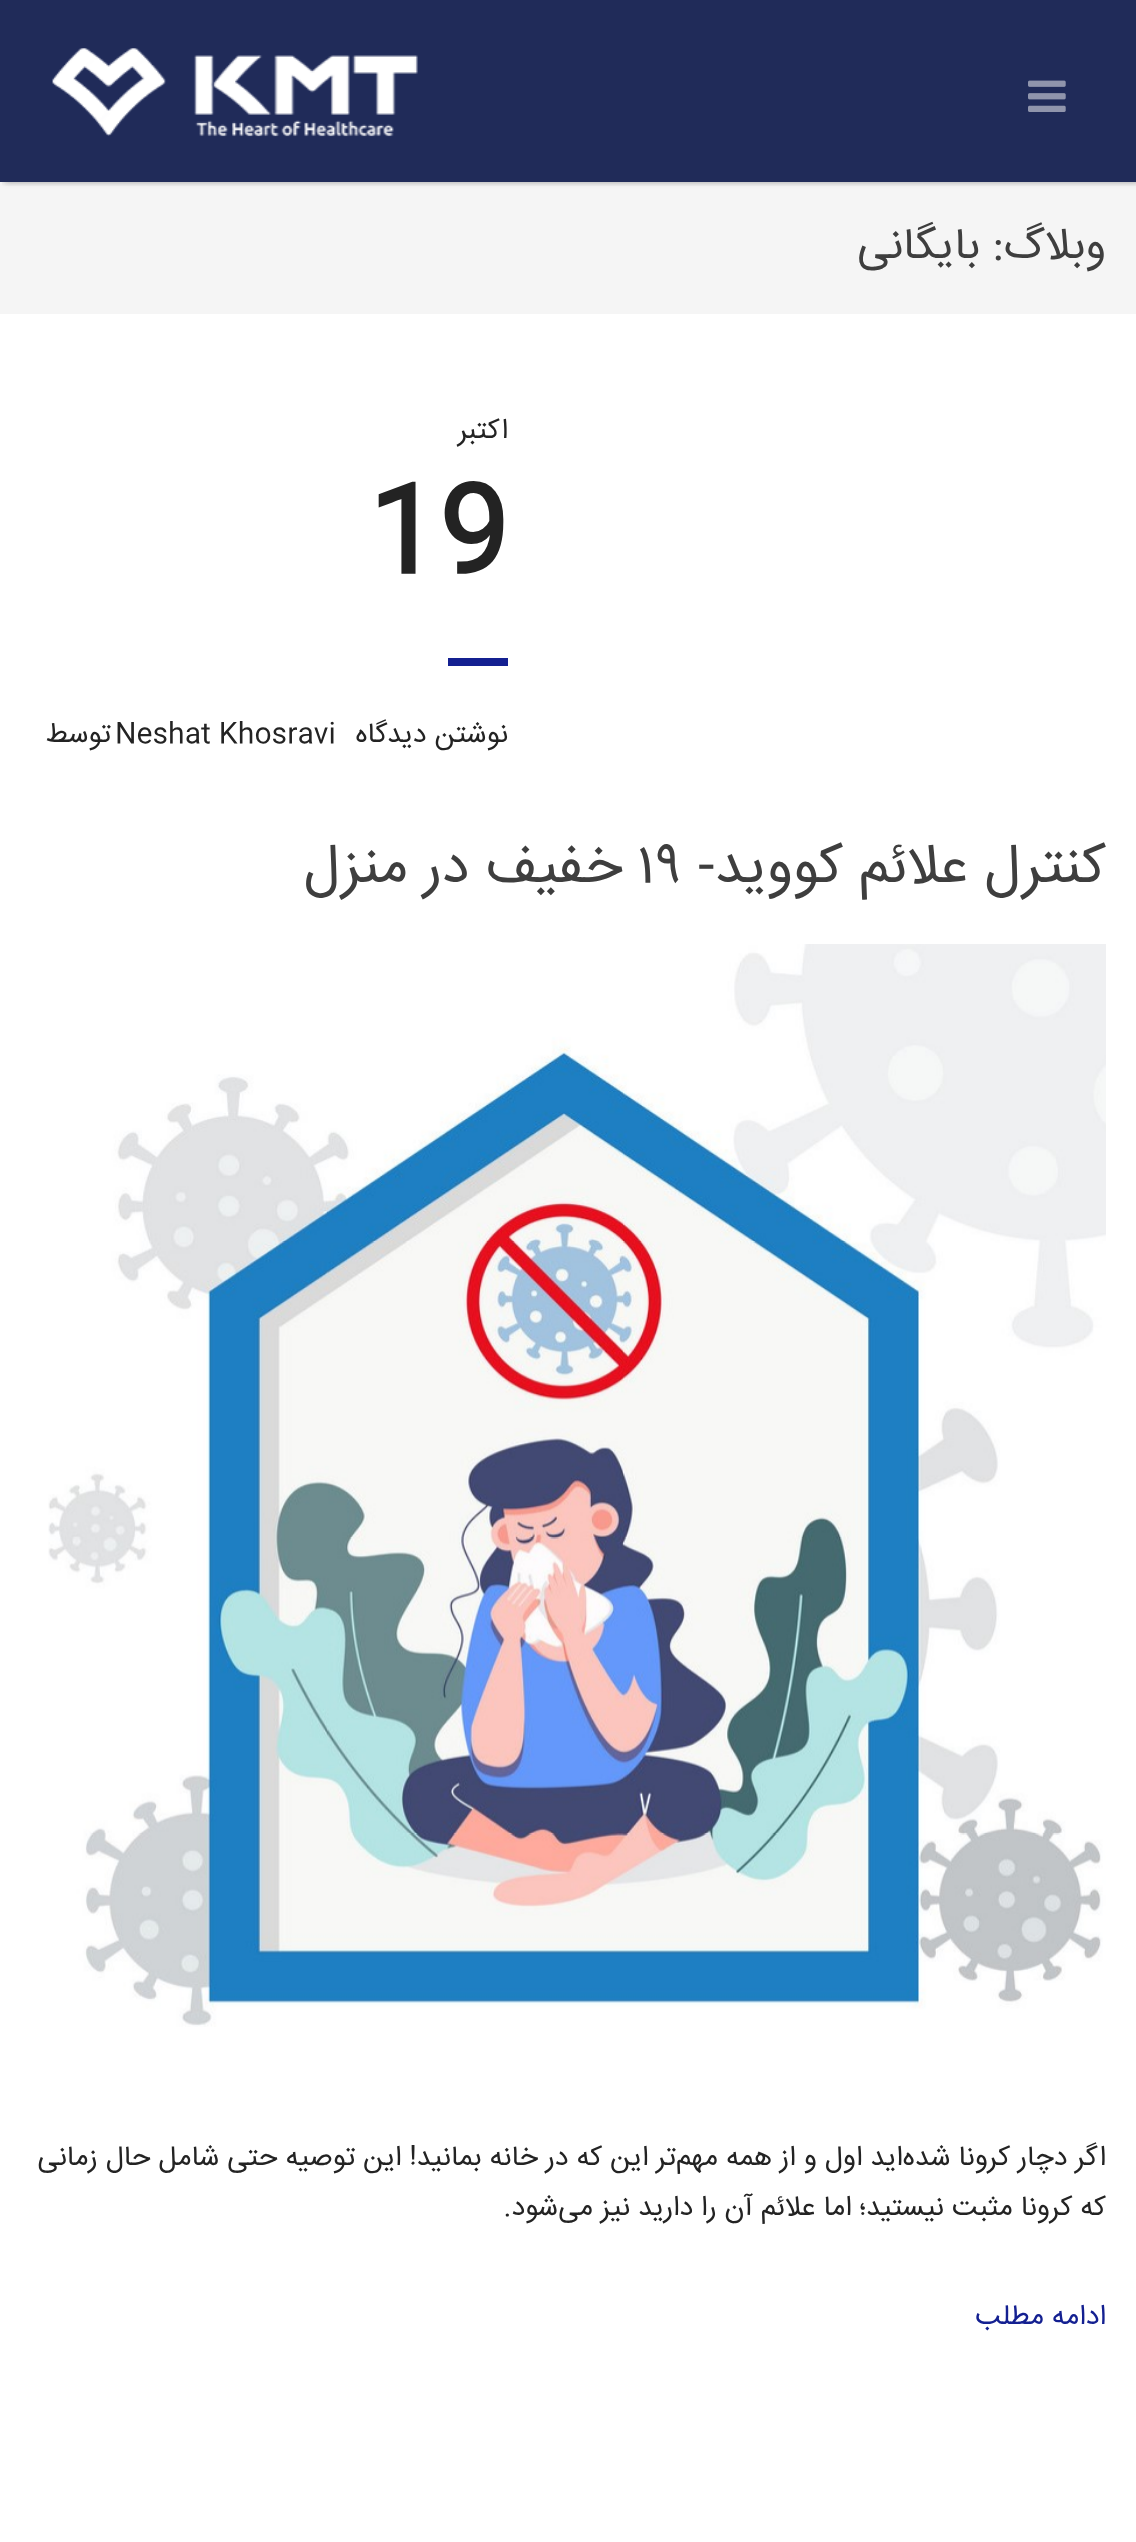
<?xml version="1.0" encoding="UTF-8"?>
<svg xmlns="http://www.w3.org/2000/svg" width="1136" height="2542">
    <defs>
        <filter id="blur1" x="-50%" y="-200%" width="200%" height="500%"><feGaussianBlur stdDeviation="3"/></filter>
        <clipPath id="clip1"><rect x="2" y="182" width="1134" height="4"/></clipPath>
    </defs>
    <rect width="100%" height="100%" fill="#FFFFFF"/>
    <rect x="0" y="182" width="1136" height="132" fill="#F5F5F5"/>
    <rect x="4" y="0" width="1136" height="182" fill="#000000" fill-opacity="0.2" filter="url(#blur1)"/>
    <rect x="0" y="0" width="1136" height="182" fill="#202B59"/>
    <g clip-path="url(#clip1)">
        <rect x="4" y="0" width="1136" height="182" fill="#000000" fill-opacity="0.2" filter="url(#blur1)"/>
    </g>
    <image x="1028" y="80" width="38" height="32" href="img_01.png"/>
    <image x="52" y="48" width="366" height="89" href="img_02.png"/>
    <text x="1106" y="258" font-family="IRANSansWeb" font-size="44" direction="rtl" fill="#3E3E3E">وبلاگ: بایگانی</text>
    <text x="508" y="438" font-family="IRANSansWeb" font-size="28" direction="rtl" fill="#232323">اکتبر</text>
    <text x="368" y="568" font-family="IRANSansWeb" font-size="116" font-weight="700" fill="#232323">19</text>
    <rect x="448" y="658" width="60" height="8" fill="#142091"/>
    <text x="508" y="742" font-family="IRANSansWeb" font-size="28" direction="rtl" fill="#232323">نوشتن دیدگاه</text>
    <text x="115" y="742" font-family="IRANSansWeb" font-size="28" fill="#232323">Neshat Khosravi</text>
    <text x="111" y="742" font-family="IRANSansWeb" font-size="28" direction="rtl" fill="#232323">توسط</text>
    <text x="1106" y="882" font-family="IRANSansWeb" font-size="56" direction="rtl" fill="#3E3E3E">کنترل علائم کووید-</text>
    <text x="637" y="882" font-family="IRANSansWeb" font-size="56" fill="#3E3E3E">۱۹</text>
    <text x="622" y="882" font-family="IRANSansWeb" font-size="56" direction="rtl" fill="#3E3E3E">خفیف در منزل</text>
    <image x="48" y="944" width="1058" height="1083" href="img_03.png"/>
    <text font-family="IRANSansWeb" font-size="28" direction="rtl" fill="#232323">
        <tspan x="1106" y="2165">اگر دچار کرونا شده‌اید اول و از همه مهم‌تر این که در خانه بمانید! این توصیه حتی شامل حال زمانی</tspan>
        <tspan x="1106" y="2215">که کرونا مثبت نیستید؛ اما علائم آن را دارید نیز می‌شود.</tspan>
    </text>
    <text x="1106" y="2324" font-family="IRANSansWeb" font-size="28" direction="rtl" fill="#142091">ادامه مطلب</text>
</svg>
